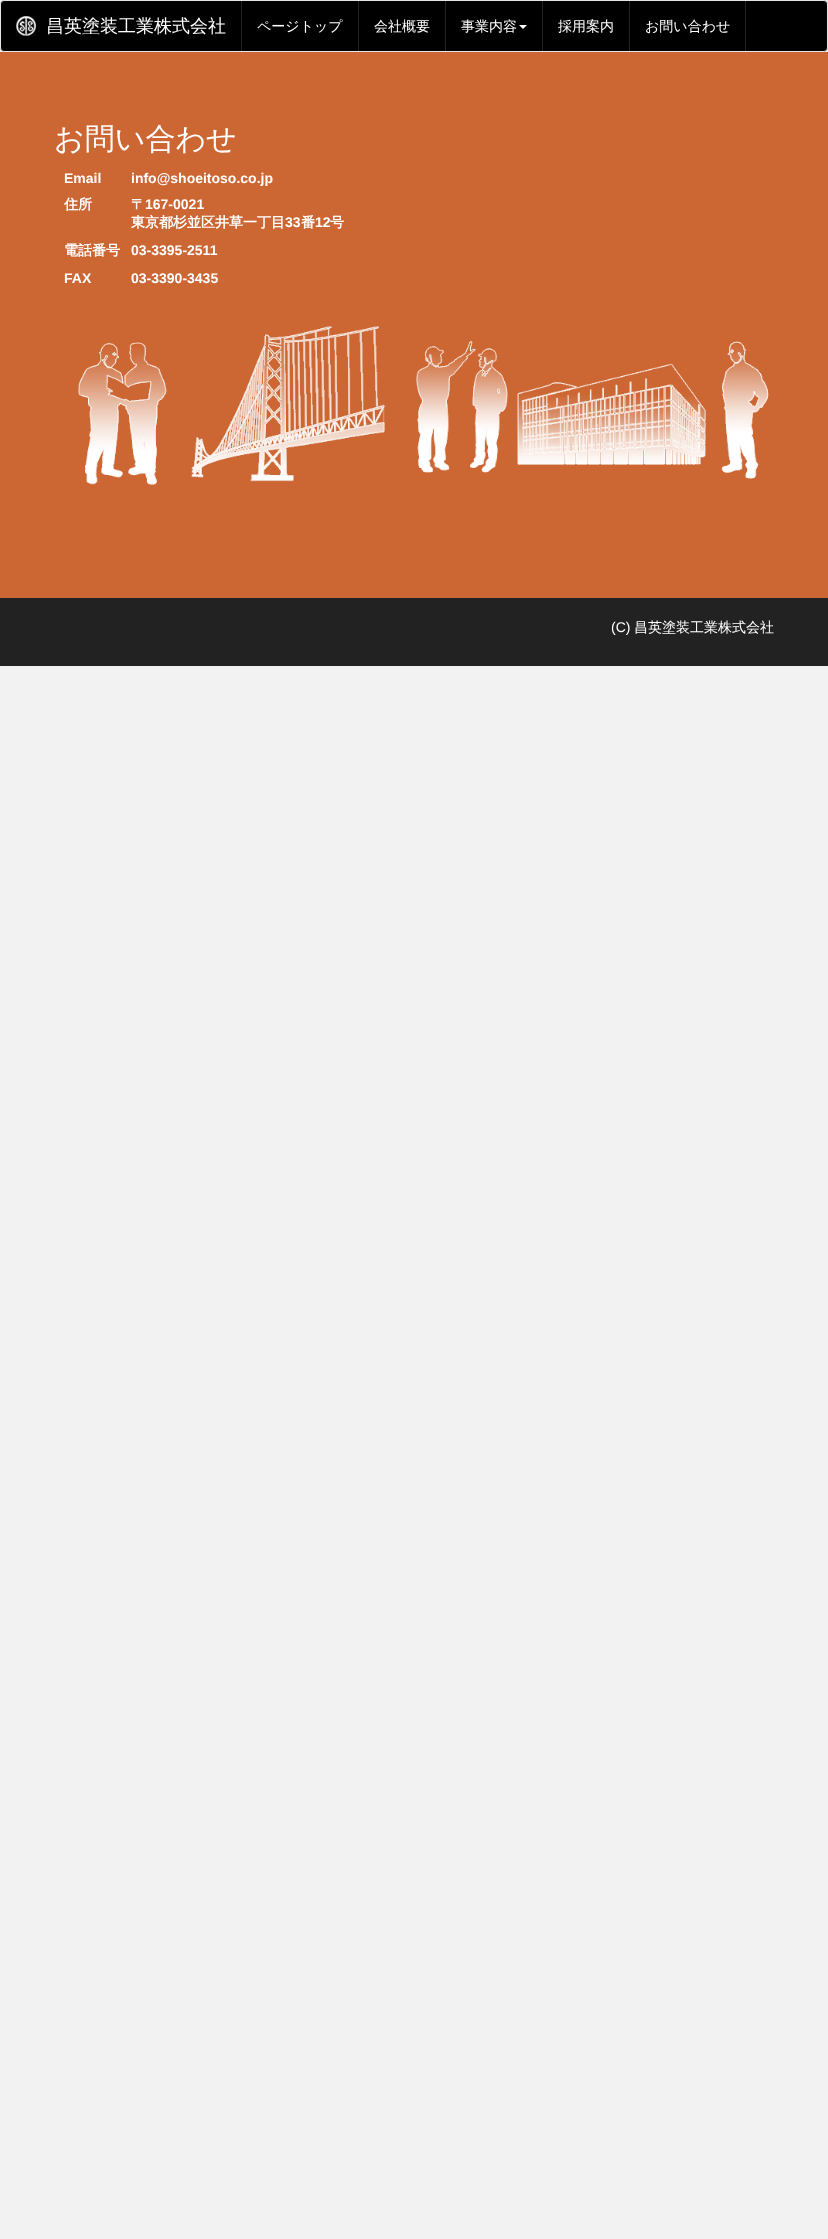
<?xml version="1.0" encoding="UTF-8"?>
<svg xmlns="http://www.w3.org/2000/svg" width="828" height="2239">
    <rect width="100%" height="100%" fill="#F2F2F2"/>
    <rect x="0.5" y="0.5" width="827" height="51" rx="3.5" fill="#000000" stroke="#E7E7E7"/>
    <rect x="241" y="1" width="1" height="50" fill="#222222"/>
    <image x="16" y="16" width="20" height="20" href="img_01.png"/>
    <text x="46" y="32" font-family="WenQuanYi Zen Hei" font-size="18" font-weight="500" fill="#FFFFFF">昌英塗装工業株式会社</text>
    <rect x="358" y="1" width="1" height="50" fill="#222222"/>
    <text x="257" y="31" font-family="WenQuanYi Zen Hei" font-size="14" font-weight="500" fill="#FFFFFF">ページトップ</text>
    <rect x="445" y="1" width="1" height="50" fill="#222222"/>
    <text x="374" y="31" font-family="WenQuanYi Zen Hei" font-size="14" font-weight="500" fill="#FFFFFF">会社概要</text>
    <rect x="542" y="1" width="1" height="50" fill="#222222"/>
    <text x="461" y="31" font-family="WenQuanYi Zen Hei" font-size="14" font-weight="500" fill="#FFFFFF">事業内容</text>
    <path d="M 519 25 H 527 L 523 29 Z" fill="#FFFFFF"/>
    <rect x="629" y="1" width="1" height="50" fill="#222222"/>
    <text x="558" y="31" font-family="WenQuanYi Zen Hei" font-size="14" font-weight="500" fill="#FFFFFF">採用案内</text>
    <rect x="745" y="1" width="1" height="50" fill="#222222"/>
    <text x="645" y="31" font-family="WenQuanYi Zen Hei" font-size="14" font-weight="500" fill="#FFFFFF">お問い合わせ</text>
    <rect x="0" y="52" width="828" height="546" fill="#CC6633"/>
    <text x="54" y="149" font-family="WenQuanYi Zen Hei" font-size="30" font-weight="500" fill="#FFFFFF">お問い合わせ</text>
    <text x="64" y="183" font-family="Liberation Sans" font-size="14" font-weight="700" fill="#FFFFFF">Email</text>
    <text x="131" y="183" font-family="Liberation Sans" font-size="14" font-weight="700" fill="#FFFFFF">info@shoeitoso.co.jp</text>
    <text x="64" y="209" font-family="WenQuanYi Zen Hei" font-size="14" font-weight="700" fill="#FFFFFF">住所</text>
    <text x="131" y="209" font-family="WenQuanYi Zen Hei" font-size="14" font-weight="700" fill="#FFFFFF">〒</text>
    <text x="145" y="209" font-family="Liberation Sans" font-size="14" font-weight="700" fill="#FFFFFF">167-0021</text>
    <text x="131" y="227" font-family="WenQuanYi Zen Hei" font-size="14" font-weight="700" fill="#FFFFFF">東京都杉並区井草一丁目</text>
    <text x="285" y="227" font-family="Liberation Sans" font-size="14" font-weight="700" fill="#FFFFFF">33</text>
    <text x="301" y="227" font-family="WenQuanYi Zen Hei" font-size="14" font-weight="700" fill="#FFFFFF">番</text>
    <text x="315" y="227" font-family="Liberation Sans" font-size="14" font-weight="700" fill="#FFFFFF">12</text>
    <text x="330" y="227" font-family="WenQuanYi Zen Hei" font-size="14" font-weight="700" fill="#FFFFFF">号</text>
    <text x="64" y="255" font-family="WenQuanYi Zen Hei" font-size="14" font-weight="700" fill="#FFFFFF">電話番号</text>
    <text x="131" y="255" font-family="Liberation Sans" font-size="14" font-weight="700" fill="#FFFFFF">03-3395-2511</text>
    <text x="64" y="283" font-family="Liberation Sans" font-size="14" font-weight="700" fill="#FFFFFF">FAX</text>
    <text x="131" y="283" font-family="Liberation Sans" font-size="14" font-weight="700" fill="#FFFFFF">03-3390-3435</text>
    <image x="78" y="326" width="691" height="159" href="img_02.png"/>
    <rect x="0" y="598" width="828" height="68" fill="#222222"/>
    <text x="611" y="632" font-family="Liberation Sans" font-size="14" fill="#FFFFFF">(C)</text>
    <text x="634" y="632" font-family="WenQuanYi Zen Hei" font-size="14" font-weight="500" fill="#FFFFFF">昌英塗装工業株式会社</text>
</svg>
